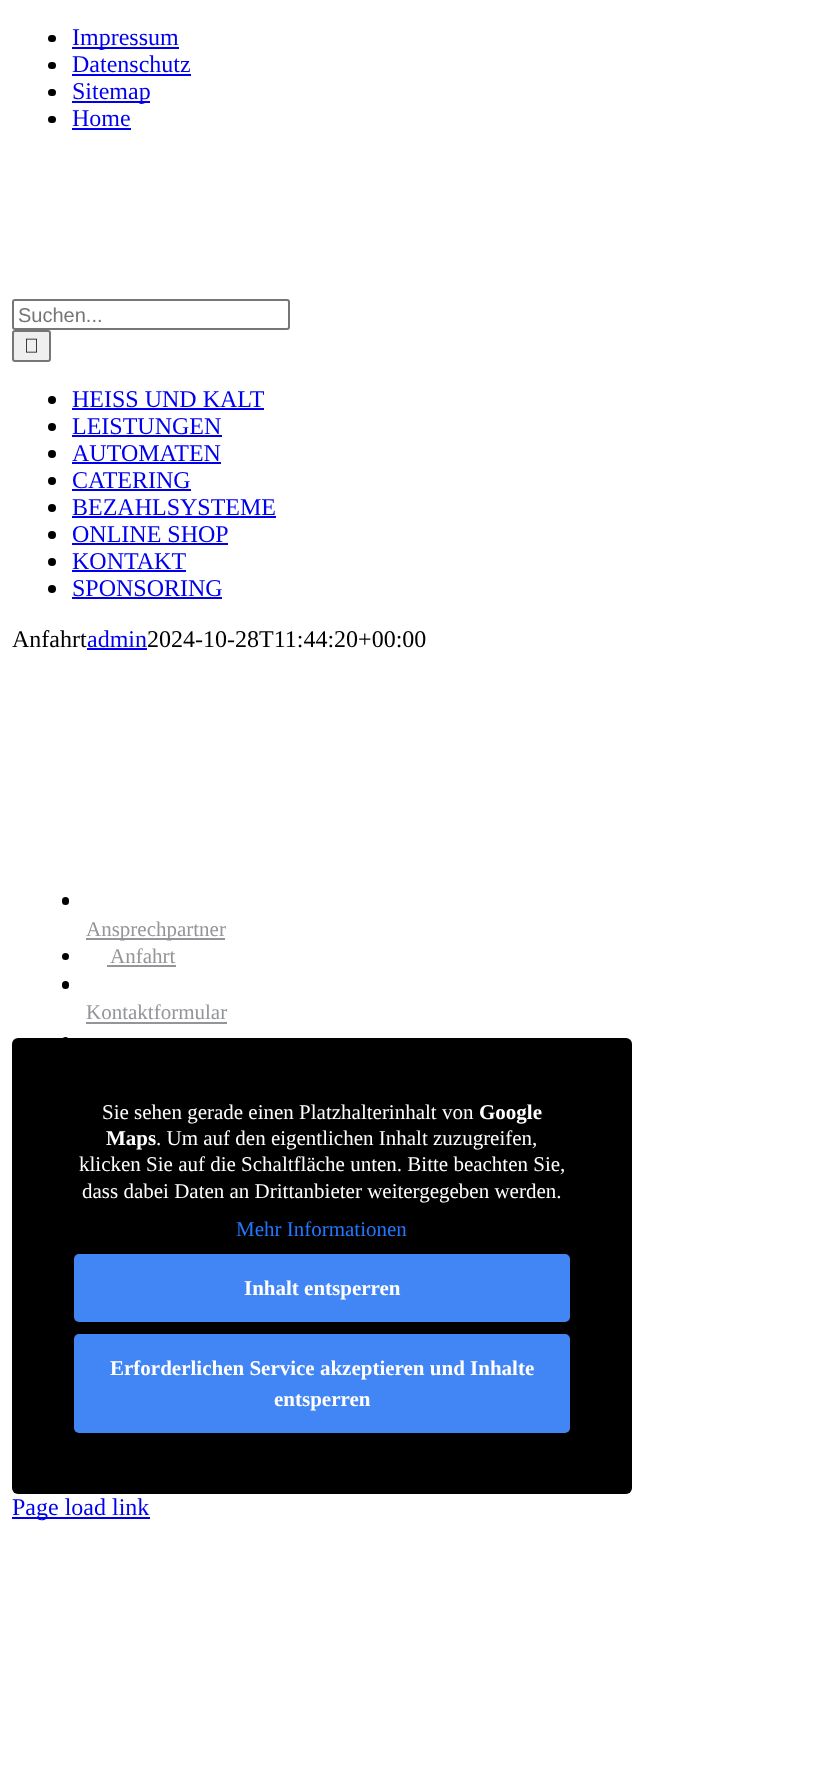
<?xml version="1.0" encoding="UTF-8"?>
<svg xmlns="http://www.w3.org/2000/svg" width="830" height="1786">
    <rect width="100%" height="100%" fill="#FFFFFF"/>
    <rect x="48" y="35" width="8" height="7" rx="3.5" fill="#000000"/>
    <rect x="72" y="47" width="107" height="2" fill="#0000EE"/>
    <text x="72" y="45" font-family="Liberation Serif" font-size="24" fill="#0000EE">Impressum</text>
    <rect x="48" y="62" width="8" height="7" rx="3.5" fill="#000000"/>
    <text x="72" y="72" font-family="Liberation Serif" font-size="24" fill="#0000EE">Datenschutz</text>
    <rect x="72" y="74" width="119" height="2" fill="#0000EE"/>
    <rect x="48" y="89" width="8" height="7" rx="3.5" fill="#000000"/>
    <rect x="72" y="101" width="78" height="2" fill="#0000EE"/>
    <text x="72" y="99" font-family="Liberation Serif" font-size="24" fill="#0000EE">Sitemap</text>
    <rect x="48" y="116" width="8" height="7" rx="3.5" fill="#000000"/>
    <text x="72" y="126" font-family="Liberation Serif" font-size="24" fill="#0000EE">Home</text>
    <rect x="72" y="128" width="59" height="2" fill="#0000EE"/>
    <rect x="13" y="300" width="276" height="29" rx="2" fill="none" stroke="#767676" stroke-width="2"/>
    <text x="18" y="322" font-family="Liberation Sans" font-size="20" fill="#757575">Suchen...</text>
    <rect x="13" y="331" width="37" height="30" rx="2" fill="#EFEFEF" stroke="#767676" stroke-width="2"/>
    <image x="26" y="338" width="11" height="15" href="img_01.png"/>
    <circle cx="52" cy="400" r="4" fill="#000000"/>
    <text x="72" y="407" font-family="Liberation Serif" font-size="24" fill="#0000EE">HEISS UND KALT</text>
    <rect x="72" y="408" width="192" height="2" fill="#0000EE"/>
    <circle cx="52" cy="427" r="4" fill="#000000"/>
    <text x="72" y="434" font-family="Liberation Serif" font-size="24" fill="#0000EE">LEISTUNGEN</text>
    <rect x="72" y="435" width="150" height="2" fill="#0000EE"/>
    <circle cx="52" cy="454" r="4" fill="#000000"/>
    <text x="72" y="461" font-family="Liberation Serif" font-size="24" fill="#0000EE">AUTOMATEN</text>
    <rect x="72" y="462" width="149" height="2" fill="#0000EE"/>
    <circle cx="52" cy="481" r="4" fill="#000000"/>
    <text x="72" y="488" font-family="Liberation Serif" font-size="24" fill="#0000EE">CATERING</text>
    <rect x="72" y="489" width="119" height="2" fill="#0000EE"/>
    <circle cx="52" cy="508" r="4" fill="#000000"/>
    <text x="72" y="515" font-family="Liberation Serif" font-size="24" fill="#0000EE">BEZAHLSYSTEME</text>
    <rect x="72" y="516" width="204" height="2" fill="#0000EE"/>
    <circle cx="52" cy="535" r="4" fill="#000000"/>
    <text x="72" y="542" font-family="Liberation Serif" font-size="24" fill="#0000EE">ONLINE SHOP</text>
    <rect x="72" y="543" width="156" height="2" fill="#0000EE"/>
    <circle cx="52" cy="562" r="4" fill="#000000"/>
    <text x="72" y="569" font-family="Liberation Serif" font-size="24" fill="#0000EE">KONTAKT</text>
    <rect x="72" y="570" width="114" height="2" fill="#0000EE"/>
    <circle cx="52" cy="589" r="4" fill="#000000"/>
    <text x="72" y="596" font-family="Liberation Serif" font-size="24" fill="#0000EE">SPONSORING</text>
    <rect x="72" y="597" width="150" height="2" fill="#0000EE"/>
    <text x="12" y="647" font-family="Liberation Serif" font-size="24" fill="#000000">Anfahrt</text>
    <text x="87" y="647" font-family="Liberation Serif" font-size="24" fill="#0000EE">admin</text>
    <rect x="87" y="648" width="60" height="2" fill="#0000EE"/>
    <text x="147" y="647" font-family="Liberation Serif" font-size="24" fill="#000000">2024-10-28T11:44:20+00:00</text>
    <rect x="62" y="897" width="7" height="8" rx="3.5" fill="#000000"/>
    <rect x="86" y="938" width="139" height="2" fill="#939598"/>
    <text x="86" y="936" font-family="Liberation Serif" font-size="21" fill="#939598">Ansprechpartner</text>
    <circle cx="65.5" cy="956.5" r="3.5" fill="#000000"/>
    <text x="110" y="963" font-family="Liberation Serif" font-size="21" fill="#939598">Anfahrt</text>
    <rect x="107" y="965" width="69" height="2" fill="#939598"/>
    <rect x="62" y="981" width="7" height="8" rx="3.5" fill="#000000"/>
    <text x="86" y="1019" font-family="Liberation Serif" font-size="21" fill="#939598">Kontaktformular</text>
    <rect x="86" y="1022" width="141" height="2" fill="#939598"/>
    <circle cx="65.5" cy="1040.5" r="3.5" fill="#000000"/>
    <rect x="12" y="1038" width="620" height="456" rx="6" fill="#000000"/>
    <text x="102" y="1119" font-family="Liberation Serif" font-size="21" fill="#FFFFFF">Sie sehen gerade einen Platzhalterinhalt von</text>
    <text x="479" y="1119" font-family="Liberation Serif" font-size="21" font-weight="700" fill="#FFFFFF">Google</text>
    <text x="106" y="1145" font-family="Liberation Serif" font-size="21" font-weight="700" fill="#FFFFFF">Maps</text>
    <text x="156" y="1145" font-family="Liberation Serif" font-size="21" fill="#FFFFFF">. Um auf den eigentlichen Inhalt zuzugreifen,</text>
    <text x="79" y="1171" font-family="Liberation Serif" font-size="21" fill="#FFFFFF">klicken Sie auf die Schaltfläche unten. Bitte beachten Sie,</text>
    <text x="82" y="1198" font-family="Liberation Serif" font-size="21" fill="#FFFFFF">dass dabei Daten an Drittanbieter weitergegeben werden.</text>
    <text x="236" y="1236" font-family="Liberation Serif" font-size="21" fill="#2277FF">Mehr Informationen</text>
    <rect x="74" y="1254" width="496" height="68" rx="5" fill="#4285F4"/>
    <text x="244" y="1295" font-family="Liberation Serif" font-size="21" font-weight="700" fill="#FFFFFF">Inhalt entsperren</text>
    <rect x="74" y="1334" width="496" height="99" rx="5" fill="#4285F4"/>
    <text x="110" y="1375" font-family="Liberation Serif" font-size="21" font-weight="700" fill="#FFFFFF">Erforderlichen Service akzeptieren und Inhalte</text>
    <text x="274" y="1406" font-family="Liberation Serif" font-size="21" font-weight="700" fill="#FFFFFF">entsperren</text>
    <rect x="12" y="1517" width="138" height="2" fill="#0000EE"/>
    <text x="12" y="1515" font-family="Liberation Serif" font-size="24" fill="#0000EE">Page load link</text>
</svg>
